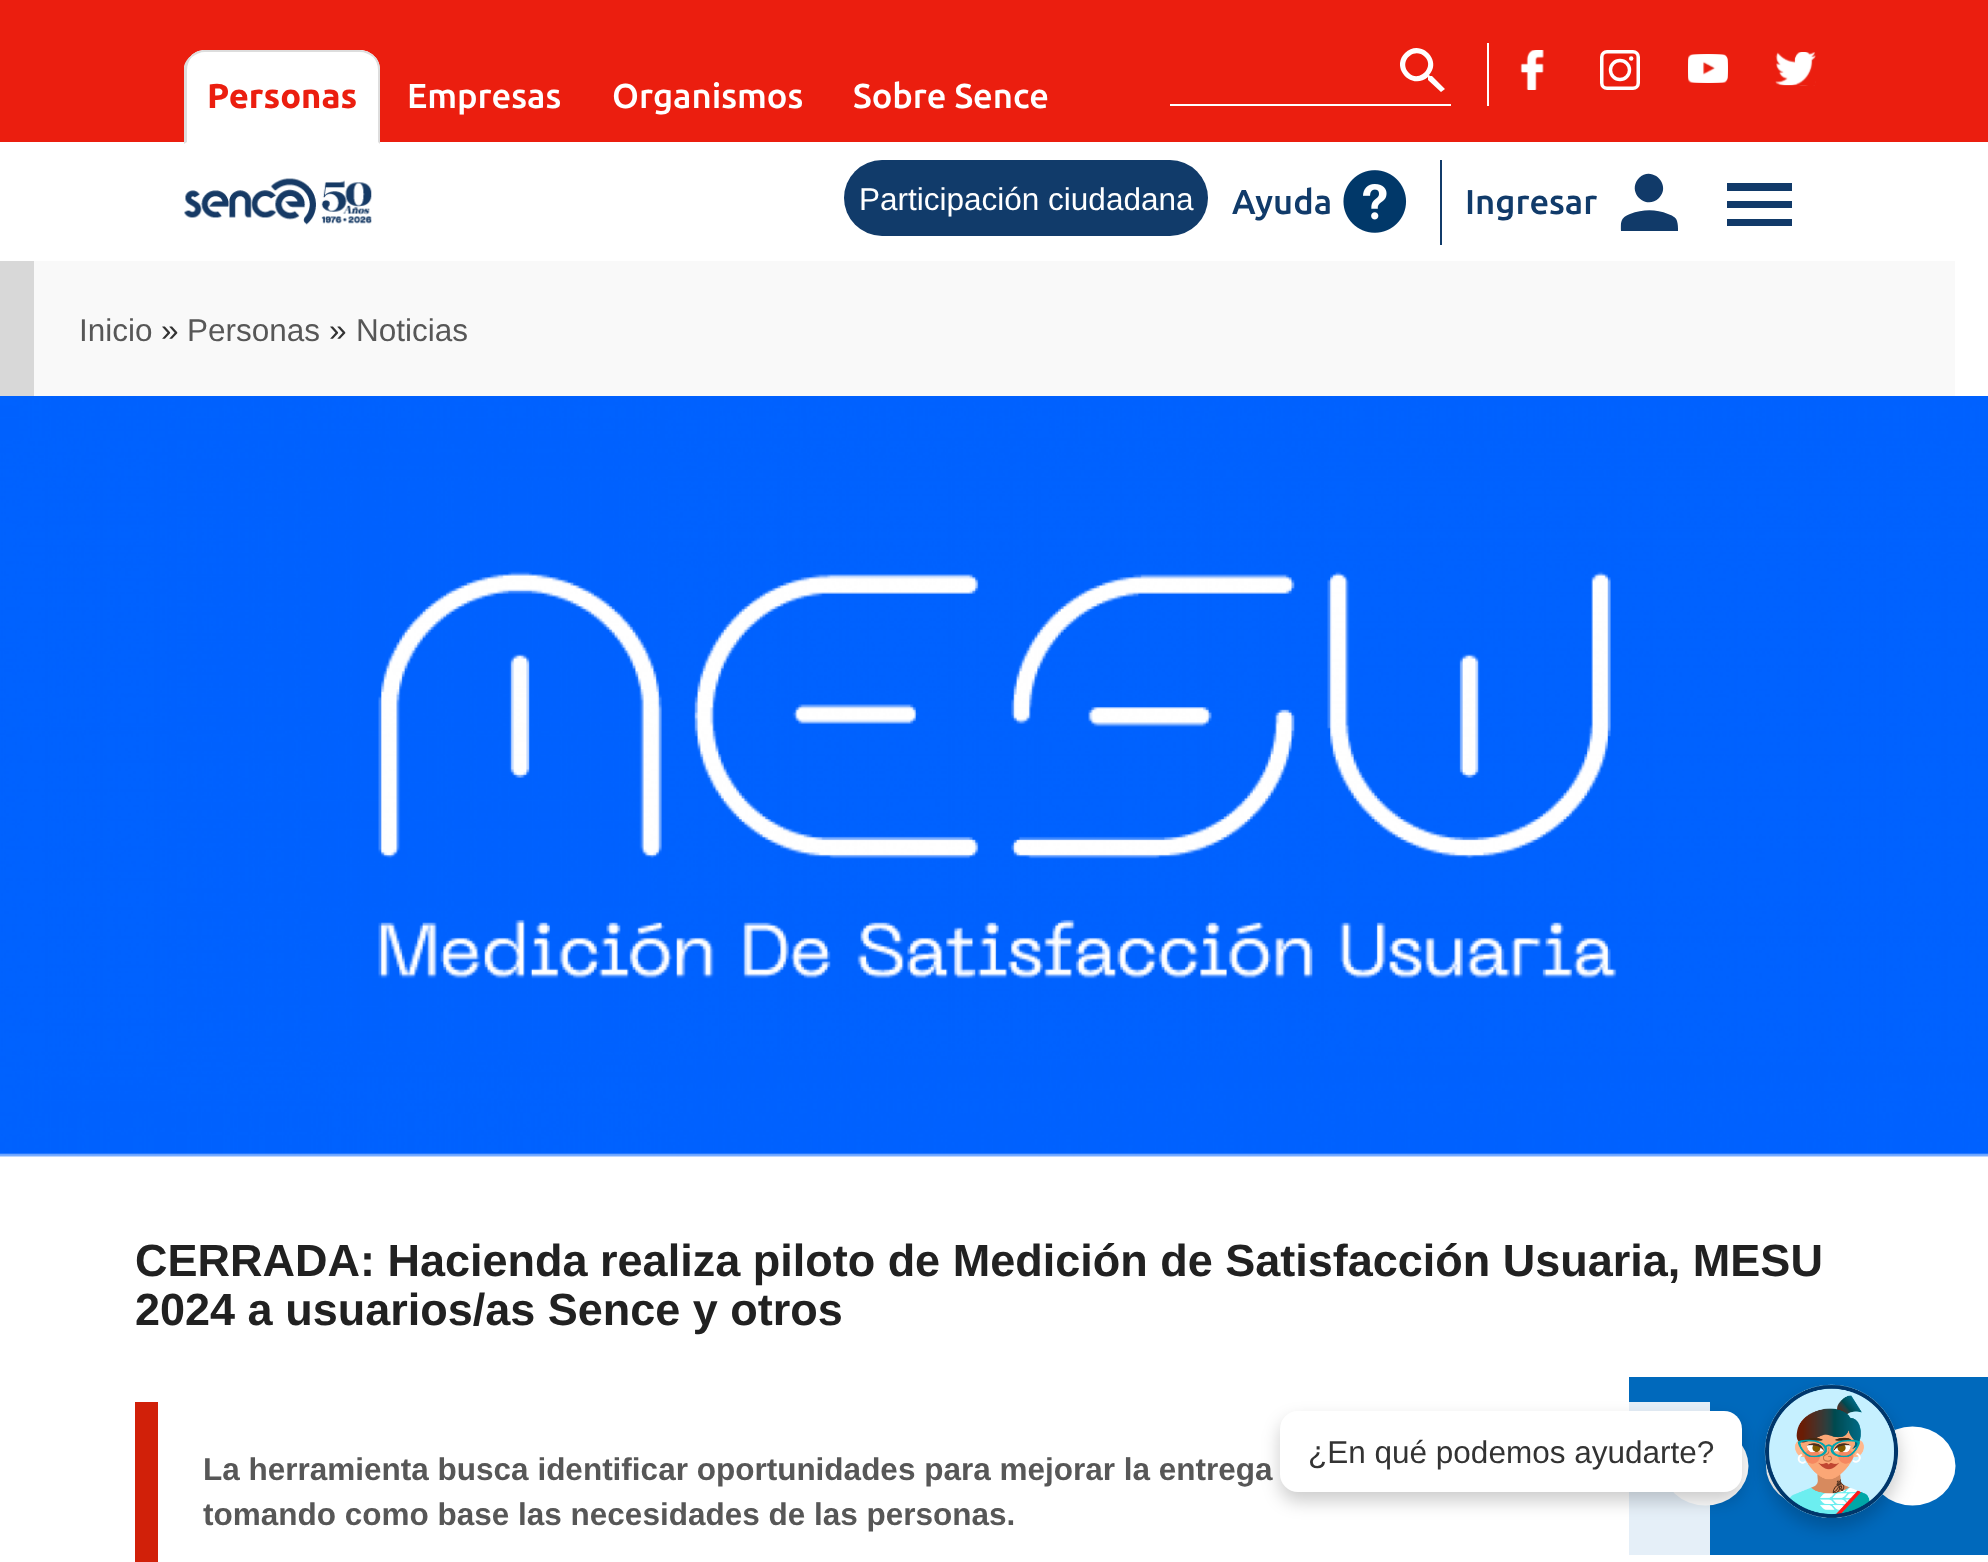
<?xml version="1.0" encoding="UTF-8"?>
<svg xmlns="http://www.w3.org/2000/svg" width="1988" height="1562">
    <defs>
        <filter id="blur1" x="-50%" y="-200%" width="200%" height="500%"><feGaussianBlur stdDeviation="9"/></filter>
    </defs>
    <rect width="100%" height="100%" fill="#FFFFFF"/>
    <rect x="0" y="0" width="1988" height="142" fill="#EB1E0F"/>
    <path d="M 205 50 H 360 C 371 50 380 59 380 70 V 144 H 185 V 70 C 185 59 194 50 205 50 Z" fill="#FFFFFF"/>
    <path d="M 205 50 C 200 50 194 52 191 56 L 192 57 C 196 54 200 52 205 52 H 360 C 365 52 369 54 373 57 L 374 56 C 370 52 365 50 360 50 Z" fill="#DDDDDD"/>
    <path d="M 380 144 V 70 C 380 64 378 59 374 56 L 373 57 C 376 60 378 65 378 70 V 142 Z" fill="#DDDDDD"/>
    <path d="M 184 144 L 187 142 V 70 C 187 65 189 60 192 57 L 191 56 C 188 58 185 62 184 66 Z" fill="#DDDDDD"/>
    <text x="207" y="108" font-family="Ubuntu" font-size="34.5" font-weight="700" fill="#EB1E0F">Personas</text>
    <text x="407" y="108" font-family="Ubuntu" font-size="34.5" font-weight="500" fill="#FFFFFF">Empresas</text>
    <text x="612" y="108" font-family="Ubuntu" font-size="34.5" font-weight="500" fill="#FFFFFF">Organismos</text>
    <text x="853" y="108" font-family="Ubuntu" font-size="34.5" font-weight="500" fill="#FFFFFF">Sobre Sence</text>
    <path d="M 1409 73 C 1419 83 1435 67 1425 57 C 1414 46 1398 62 1409 73 Z M 1432 76 L 1445 89 L 1441 92 L 1428 80 V 78 V 77 C 1412 91 1390 68 1405 53 C 1420 38 1443 60 1429 75 L 1430 76 Z" fill="#FFFFFF"/>
    <rect x="1170" y="104" width="281" height="2" fill="#FFFFFF"/>
    <rect x="1487" y="43" width="2" height="63" fill="#FFFFFF"/>
    <image x="1520" y="50" width="24" height="40" href="img_01.png"/>
    <rect x="1601.75" y="51.75" width="36.5" height="36.5" rx="5.25" fill="none" stroke="#FFFFFF" stroke-width="3.5"/>
    <circle cx="1620" cy="70" r="9.5" fill="none" stroke="#FFFFFF" stroke-width="3.4"/>
    <circle cx="1631.2" cy="58.5" r="2.2" fill="#FFFFFF"/>
    <image x="1688" y="54" width="40" height="29" href="img_02.png"/>
    <image x="1775" y="52" width="41" height="34" href="img_03.png"/>
    <image x="184" y="178" width="188" height="47" href="img_04.png"/>
    <rect x="844" y="160" width="364" height="76" rx="38" fill="#113B6A"/>
    <text x="859" y="210" font-family="Liberation Sans" font-size="31.5" fill="#FFFFFF">Participación ciudadana</text>
    <text x="1232" y="214" font-family="Ubuntu" font-size="34.5" font-weight="500" fill="#113B6A">Ayuda</text>
    <image x="1343" y="170" width="64" height="63" href="img_05.png"/>
    <rect x="1440" y="160" width="2" height="85" fill="#113B6A"/>
    <text x="1465" y="214" font-family="Ubuntu" font-size="34.5" font-weight="500" fill="#113B6A">Ingresar</text>
    <path d="M 1630 214 C 1643 209 1656 209 1668 214 C 1671 215 1676 217 1677 221 C 1678 224 1678 228 1678 231 H 1621 C 1621 222 1620 218 1630 214 Z M 1659 198 C 1646 211 1626 192 1639 178 C 1652 165 1672 185 1659 198 Z" fill="#113A69"/>
    <path d="M 1727 183 H 1792 V 191 H 1727 Z M 1727 208 V 201 H 1792 V 208 Z M 1727 226 V 219 H 1792 V 226 Z" fill="#113A69"/>
    <rect x="34" y="261" width="1921" height="135" fill="#F9F9F9"/>
    <rect x="0" y="261" width="34" height="135" fill="#D8D8D8"/>
    <text x="79" y="341" font-family="Liberation Sans" font-size="31.5" fill="#575757">Inicio</text>
    <text x="161" y="341" font-family="Liberation Sans" font-size="31.5" fill="#333333">»</text>
    <text x="187" y="341" font-family="Liberation Sans" font-size="31.5" fill="#575757">Personas</text>
    <text x="329" y="341" font-family="Liberation Sans" font-size="31.5" fill="#333333">»</text>
    <text x="356" y="341" font-family="Liberation Sans" font-size="31.5" fill="#575757">Noticias</text>
    <image x="0" y="396" width="1988" height="761" href="img_06.png"/>
    <text font-family="Liberation Sans" font-size="45" font-weight="700" fill="#212121">
        <tspan x="135" y="1276">CERRADA: Hacienda realiza piloto de Medición de Satisfacción Usuaria, MESU</tspan>
        <tspan x="135" y="1325">2024 a usuarios/as Sence y otros</tspan>
    </text>
    <rect x="1629" y="1377" width="359" height="178" fill="#0069BC"/>
    <ellipse cx="1705.5" cy="1466" rx="43" ry="39.5" fill="#FFFFFF"/>
    <rect x="1629" y="1402" width="81" height="153" fill="#FEFEFE" fill-opacity="0.9"/>
    <rect x="135" y="1402" width="23" height="160" fill="#D12009"/>
    <text font-family="Liberation Sans" font-size="31.5" font-weight="700" fill="#575757">
        <tspan x="203" y="1480">La herramienta busca identificar oportunidades para mejorar la entrega</tspan>
        <tspan x="203" y="1525">tomando como base las necesidades de las personas.</tspan>
    </text>
    <ellipse cx="1809" cy="1466" rx="43" ry="39.5" fill="#FFFFFF"/>
    <ellipse cx="1912.5" cy="1466" rx="43" ry="39.5" fill="#FFFFFF"/>
    <rect x="1280" y="1420" width="462" height="81" rx="18" fill="#000000" fill-opacity="0.2" filter="url(#blur1)"/>
    <rect x="1280" y="1411" width="462" height="81" rx="18" fill="#FFFFFF"/>
    <text x="1308" y="1463" font-family="Liberation Sans" font-size="31.5" fill="#333333">¿En qué podemos ayudarte?</text>
    <rect x="1764" y="1393" width="135" height="135" rx="67.5" fill="#000000" fill-opacity="0.2" filter="url(#blur1)"/>
    <image x="1764" y="1384" width="135" height="134" href="img_07.png"/>
</svg>
